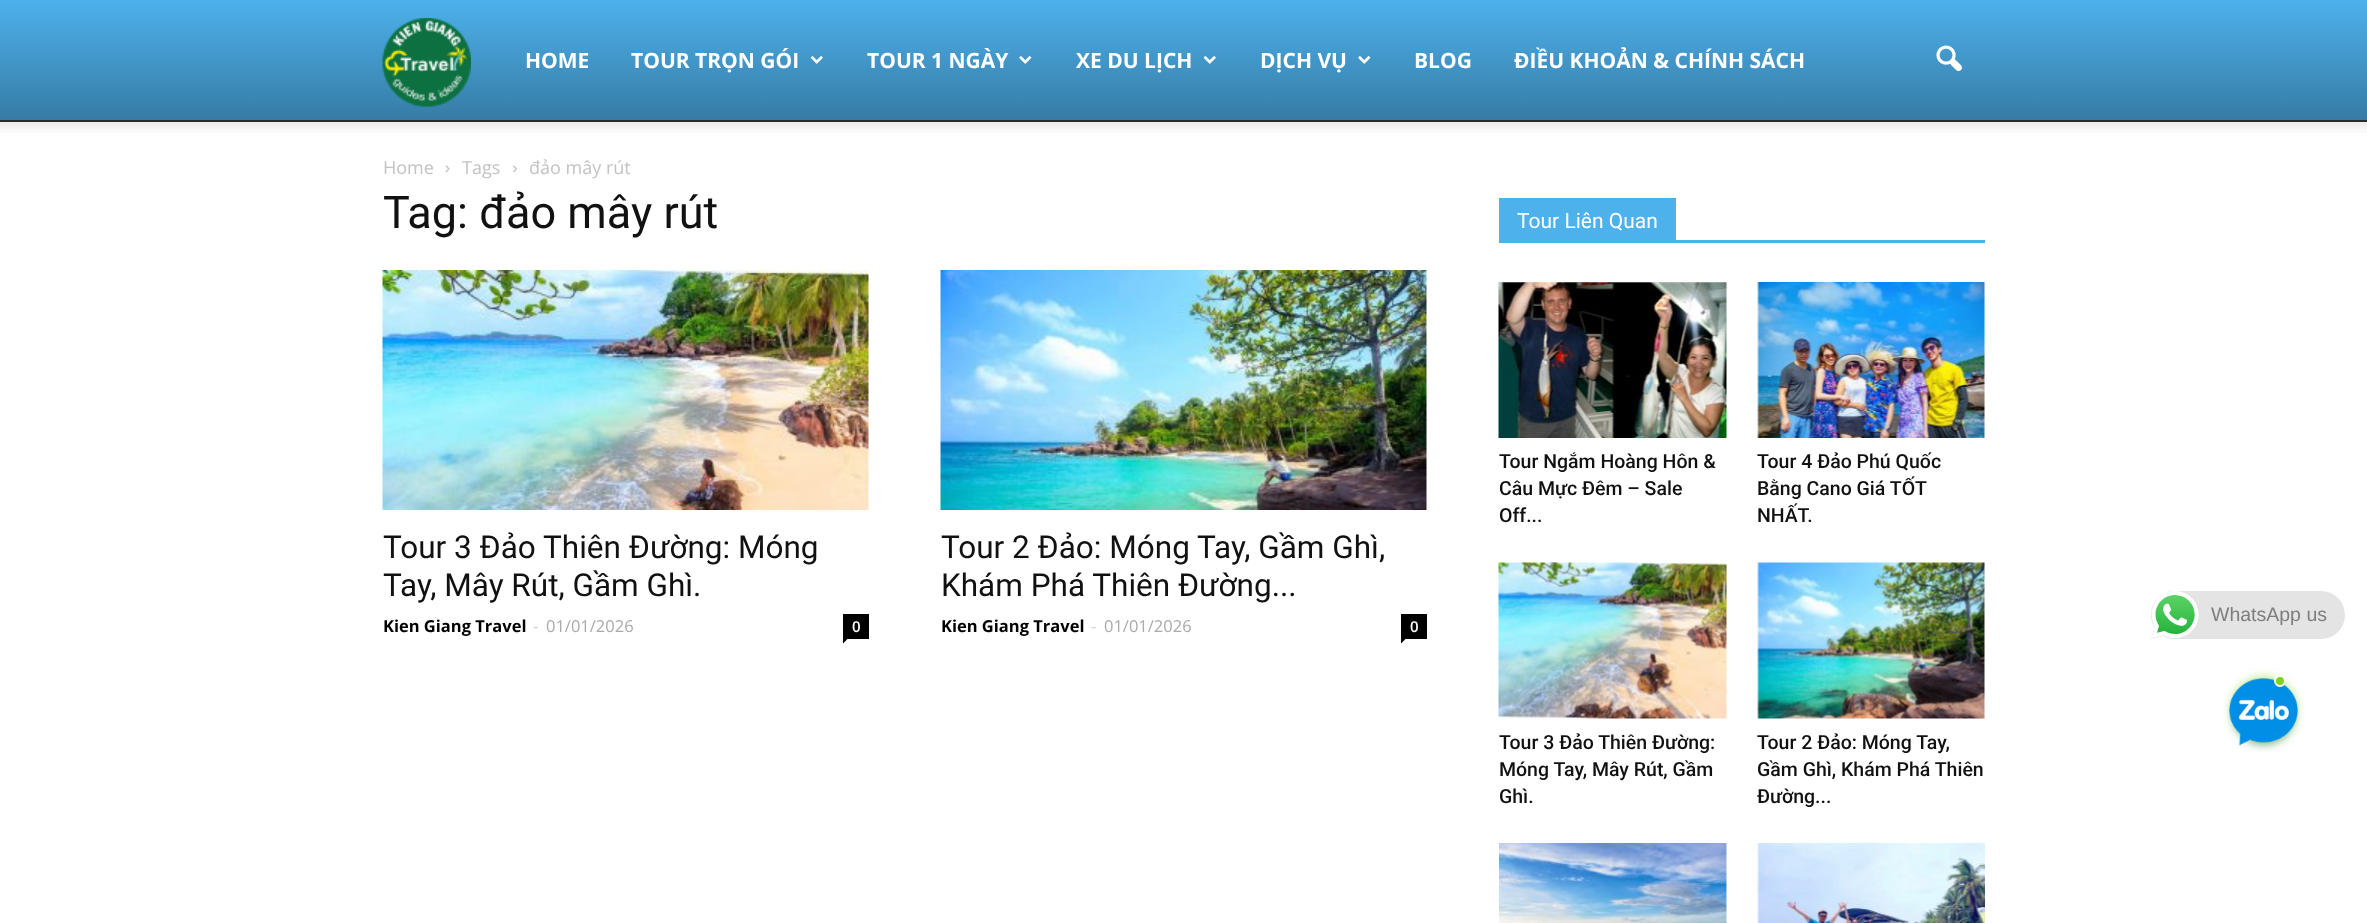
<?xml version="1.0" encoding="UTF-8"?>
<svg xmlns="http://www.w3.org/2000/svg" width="2367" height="923">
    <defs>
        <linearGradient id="g1" gradientUnits="userSpaceOnUse" x1="1184" y1="0" x2="1184" y2="120"><stop offset="0" stop-color="#4DB1EC"/><stop offset="1" stop-color="#367CA5"/></linearGradient>
        <filter id="blur1" x="-50%" y="-200%" width="200%" height="500%"><feGaussianBlur stdDeviation="6"/></filter>
    </defs>
    <rect width="100%" height="100%" fill="#FFFFFF"/>
    <rect x="0" y="0" width="2367" height="120" fill="url(#g1)"/>
    <image x="382" y="18" width="89" height="89" href="img_01.png"/>
    <text x="525" y="68" font-family="Open Sans" font-size="21" font-weight="700" fill="#FFFFFF">HOME</text>
    <text x="631" y="68" font-family="Open Sans" font-size="21" font-weight="700" fill="#FFFFFF">TOUR TRỌN GÓI</text>
    <image x="810" y="56" width="13" height="8" href="img_02.png"/>
    <text x="867" y="68" font-family="Open Sans" font-size="21" font-weight="700" fill="#FFFFFF">TOUR 1 NGÀY</text>
    <image x="1019" y="56" width="13" height="8" href="img_03.png"/>
    <text x="1076" y="68" font-family="Open Sans" font-size="21" font-weight="700" fill="#FFFFFF">XE DU LỊCH</text>
    <image x="1203" y="56" width="13" height="8" href="img_02.png"/>
    <text x="1260" y="68" font-family="Open Sans" font-size="21" font-weight="700" fill="#FFFFFF">DỊCH VỤ</text>
    <image x="1358" y="56" width="13" height="8" href="img_03.png"/>
    <text x="1414" y="68" font-family="Open Sans" font-size="21" font-weight="700" fill="#FFFFFF">BLOG</text>
    <text x="1514" y="68" font-family="Open Sans" font-size="21" font-weight="700" fill="#FFFFFF">ĐIỀU KHOẢN &amp; CHÍNH SÁCH</text>
    <image x="1936" y="45" width="26" height="26" href="img_04.png"/>
    <image x="0" y="122" width="2367" height="11" href="img_05.png"/>
    <rect x="0" y="120" width="2367" height="2" fill="#2B2B2B"/>
    <text x="383" y="174" font-family="Open Sans" font-size="18" fill="#C3C3C3">Home</text>
    <image x="445" y="165" width="5" height="8" href="img_06.png"/>
    <text x="462" y="174" font-family="Open Sans" font-size="18" fill="#C3C3C3">Tags</text>
    <image x="513" y="165" width="4" height="8" href="img_07.png"/>
    <text x="529" y="174" font-family="Open Sans" font-size="18" fill="#C3C3C3">đảo mây rút</text>
    <text x="383" y="228" font-family="Roboto" font-size="45" fill="#111111">Tag: đảo mây rút</text>
    <image x="382" y="270" width="487" height="240" href="img_08.png"/>
    <text font-family="Roboto" font-size="31.5" fill="#111111">
        <tspan x="383" y="558">Tour 3 Đảo Thiên Đường: Móng</tspan>
        <tspan x="383" y="596">Tay, Mây Rút, Gầm Ghì.</tspan>
    </text>
    <text x="383" y="632" font-family="Open Sans" font-size="16.5" font-weight="700" fill="#000000">Kien Giang Travel</text>
    <text x="533" y="632" font-family="Open Sans" font-size="16.5" fill="#CCCCCC">-</text>
    <text x="546" y="632" font-family="Open Sans" font-size="16.5" fill="#AAAAAA">01/01/2026</text>
    <rect x="843" y="614" width="26" height="25" fill="#000000"/>
    <text x="852" y="632" font-family="Open Sans" font-size="15" font-weight="600" fill="#FFFFFF">0</text>
    <path d="M 843 639 H 847.5 L 843 643.5 Z" fill="#000000"/>
    <image x="940" y="270" width="487" height="240" href="img_09.png"/>
    <text font-family="Roboto" font-size="31.5" fill="#111111">
        <tspan x="941" y="558">Tour 2 Đảo: Móng Tay, Gầm Ghì,</tspan>
        <tspan x="941" y="596">Khám Phá Thiên Đường...</tspan>
    </text>
    <text x="941" y="632" font-family="Open Sans" font-size="16.5" font-weight="700" fill="#000000">Kien Giang Travel</text>
    <text x="1091" y="632" font-family="Open Sans" font-size="16.5" fill="#CCCCCC">-</text>
    <text x="1104" y="632" font-family="Open Sans" font-size="16.5" fill="#AAAAAA">01/01/2026</text>
    <rect x="1401" y="614" width="26" height="25" fill="#000000"/>
    <text x="1410" y="632" font-family="Open Sans" font-size="15" font-weight="600" fill="#FFFFFF">0</text>
    <path d="M 1401 639 H 1405.5 L 1401 643.5 Z" fill="#000000"/>
    <rect x="1499" y="240" width="486" height="3" fill="#4DB2EC"/>
    <rect x="1499" y="198" width="177" height="42" fill="#4DB2EC"/>
    <text x="1517" y="228" font-family="Roboto" font-size="21" fill="#FFFFFF">Tour Liên Quan</text>
    <image x="1498" y="282" width="229" height="156" href="img_10.png"/>
    <text font-family="Roboto" font-size="19.5" font-weight="500" fill="#111111">
        <tspan x="1499" y="468">Tour Ngắm Hoàng Hôn &amp;</tspan>
        <tspan x="1499" y="495">Câu Mực Đêm – Sale</tspan>
        <tspan x="1499" y="522">Off...</tspan>
    </text>
    <image x="1757" y="282" width="228" height="156" href="img_11.png"/>
    <text font-family="Roboto" font-size="19.5" font-weight="500" fill="#111111">
        <tspan x="1757" y="468">Tour 4 Đảo Phú Quốc</tspan>
        <tspan x="1757" y="495">Bằng Cano Giá TỐT</tspan>
        <tspan x="1757" y="522">NHẤT.</tspan>
    </text>
    <image x="1498" y="562" width="229" height="157" href="img_12.png"/>
    <text font-family="Roboto" font-size="19.5" font-weight="500" fill="#111111">
        <tspan x="1499" y="749">Tour 3 Đảo Thiên Đường:</tspan>
        <tspan x="1499" y="776">Móng Tay, Mây Rút, Gầm</tspan>
        <tspan x="1499" y="803">Ghì.</tspan>
    </text>
    <image x="1757" y="562" width="228" height="157" href="img_13.png"/>
    <text font-family="Roboto" font-size="19.5" font-weight="500" fill="#111111">
        <tspan x="1757" y="749">Tour 2 Đảo: Móng Tay,</tspan>
        <tspan x="1757" y="776">Gầm Ghì, Khám Phá Thiên</tspan>
        <tspan x="1757" y="803">Đường...</tspan>
    </text>
    <image x="1499" y="843" width="228" height="80" href="img_14.png"/>
    <image x="1757" y="843" width="228" height="80" href="img_15.png"/>
    <rect x="2151" y="591" width="194" height="48" rx="24" fill="#E4E4E4"/>
    <image x="2151" y="591" width="48" height="48" href="img_16.png"/>
    <text x="2211" y="621" font-family="Liberation Sans" font-size="19.5" fill="#7F7D7D">WhatsApp us</text>
    <rect x="2234" y="680" width="60" height="60" rx="30" fill="#7ED321" filter="url(#blur1)"/>
    <image x="2227" y="678" width="73" height="74" href="img_17.png"/>
    <circle cx="2280" cy="681" r="5" fill="#7ED321" stroke="#FFFFFF" stroke-width="2"/>
</svg>
